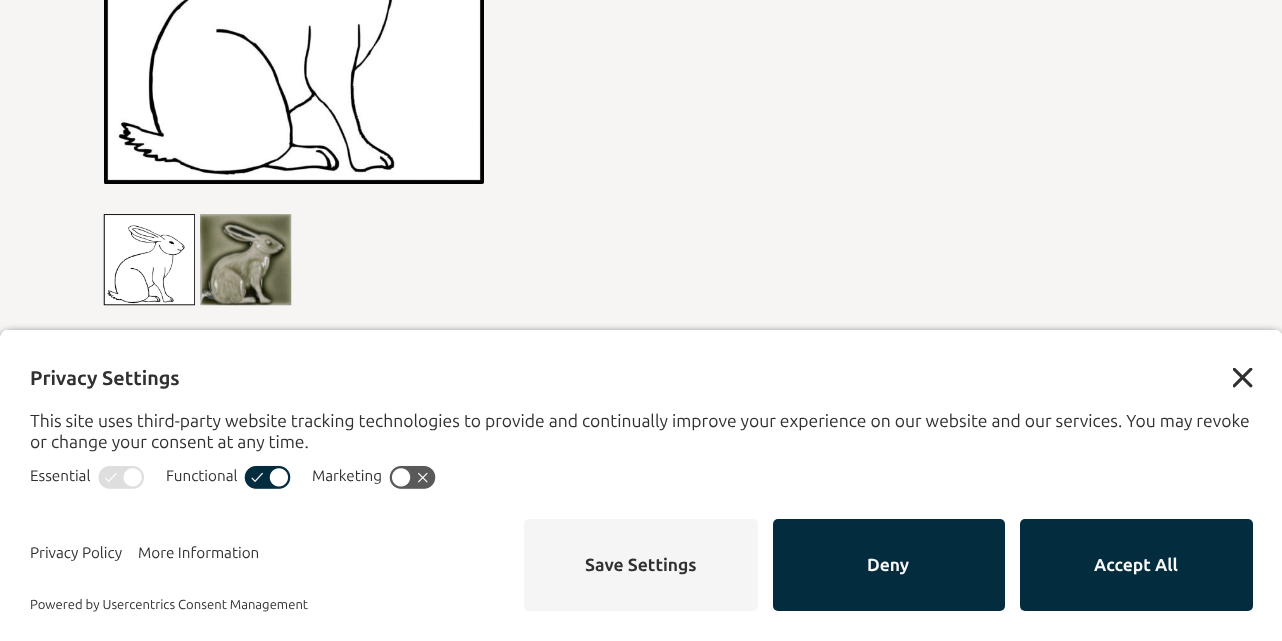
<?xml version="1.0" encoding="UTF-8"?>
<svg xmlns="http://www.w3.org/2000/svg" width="1282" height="641">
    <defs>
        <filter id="blur1" x="-50%" y="-200%" width="200%" height="500%"><feGaussianBlur stdDeviation="4.5"/></filter>
        <clipPath id="clip1"><path d="M 10 329 H 1273 C 1278.5 329 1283 333.5 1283 339 V 509 H 0 V 339 C 0 333.5 4.5 329 10 329 Z"/></clipPath>
    </defs>
    <rect width="100%" height="100%" fill="#F6F5F4"/>
    <image x="104" y="0" width="380" height="184" href="img_01.png"/>
    <image x="103" y="214" width="92" height="92" href="img_02.png"/>
    <image x="200" y="214" width="92" height="92" href="img_03.png"/>
    <rect x="0" y="333" width="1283" height="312" rx="10" fill="#000000" fill-opacity="0.8" filter="url(#blur1)"/>
    <g clip-path="url(#clip1)">
        <rect x="0" y="330" width="1282" height="179" fill="#FFFFFF"/>
        <rect x="0" y="330" width="1282" height="129" fill="#FFFFFF"/>
    </g>
    <text x="30" y="385" font-family="Ubuntu" font-size="19.75" font-weight="700" fill="#303030">Privacy Settings</text>
    <image x="1233" y="368" width="20" height="20" href="img_04.png"/>
    <text font-family="Ubuntu" font-size="17.5" fill="#303030">
        <tspan x="30" y="427">This site uses third-party website tracking technologies to provide and continually improve your experience on our website and our services. You may revoke</tspan>
        <tspan x="30" y="448">or change your consent at any time.</tspan>
    </text>
    <text x="30" y="481" font-family="Ubuntu" font-size="15.25" fill="#303030">Essential</text>
    <image x="98" y="466" width="46" height="23" href="img_05.png"/>
    <text x="166" y="481" font-family="Ubuntu" font-size="15.25" fill="#303030">Functional</text>
    <image x="244" y="465" width="47" height="25" href="img_06.png"/>
    <text x="312" y="481" font-family="Ubuntu" font-size="15.25" fill="#303030">Marketing</text>
    <image x="389" y="465" width="47" height="25" href="img_07.png"/>
    <rect x="0" y="509" width="1282" height="132" fill="#FFFFFF"/>
    <text x="30" y="558" font-family="Ubuntu" font-size="15.25" fill="#303030">Privacy Policy</text>
    <text x="138" y="558" font-family="Ubuntu" font-size="15.25" fill="#303030">More Information</text>
    <text x="30" y="609" font-family="Ubuntu" font-size="13.1" fill="#303030">Powered by Usercentrics Consent Management</text>
    <rect x="524" y="519" width="234" height="92" rx="5" fill="#F5F5F5"/>
    <text x="585" y="571" font-family="Ubuntu" font-size="17.5" font-weight="700" fill="#303030">Save Settings</text>
    <rect x="773" y="519" width="232" height="92" rx="5" fill="#032C3F"/>
    <text x="867" y="571" font-family="Ubuntu" font-size="17.5" font-weight="700" fill="#FAFAFA">Deny</text>
    <rect x="1020" y="519" width="233" height="92" rx="5" fill="#032C3F"/>
    <text x="1094" y="571" font-family="Ubuntu" font-size="17.5" font-weight="700" fill="#FAFAFA">Accept All</text>
</svg>
